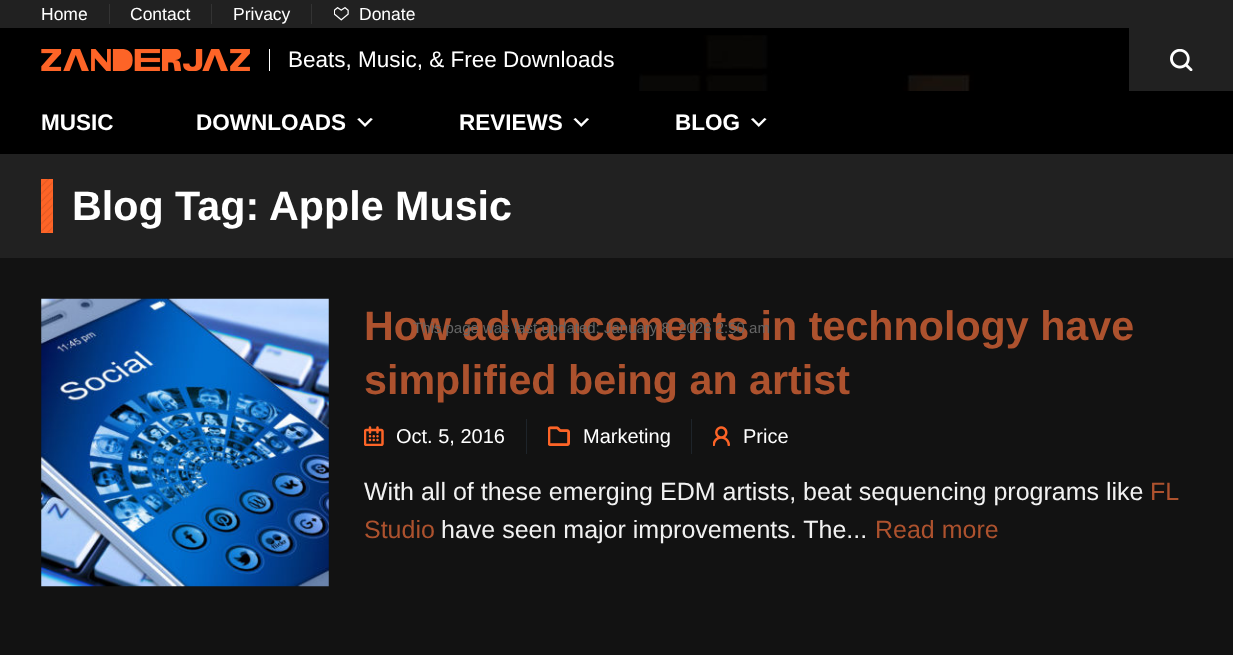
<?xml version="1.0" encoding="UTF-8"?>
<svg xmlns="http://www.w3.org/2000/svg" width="1233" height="655">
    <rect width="100%" height="100%" fill="#121212"/>
    <rect x="0" y="0" width="1233" height="28" fill="#212121"/>
    <rect x="109" y="4" width="1" height="20" fill="#333333"/>
    <text x="41" y="20" font-family="Liberation Sans" font-size="17.5" fill="#FFFFFF">Home</text>
    <rect x="211" y="4" width="1" height="20" fill="#333333"/>
    <text x="130" y="20" font-family="Liberation Sans" font-size="17.5" fill="#FFFFFF">Contact</text>
    <rect x="311" y="4" width="1" height="20" fill="#333333"/>
    <text x="233" y="20" font-family="Liberation Sans" font-size="17.5" fill="#FFFFFF">Privacy</text>
    <image x="334" y="7" width="15" height="14" href="img_01.png"/>
    <text x="359" y="20" font-family="Liberation Sans" font-size="17.5" fill="#FFFFFF">Donate</text>
    <rect x="0" y="28" width="1129" height="63" fill="#000000"/>
    <image x="639" y="35" width="490" height="56" href="img_02.png"/>
    <image x="41" y="49" width="209" height="22" href="img_03.png"/>
    <rect x="269" y="49" width="1" height="22" fill="#FFFFFF"/>
    <text x="288" y="67" font-family="Liberation Sans" font-size="22.5" fill="#FFFFFF">Beats, Music, &amp; Free Downloads</text>
    <rect x="1129" y="28" width="104" height="63" fill="#212121"/>
    <image x="1170" y="49" width="23" height="22" href="img_04.png"/>
    <rect x="0" y="91" width="1233" height="63" fill="#000000"/>
    <text x="41" y="130" font-family="Liberation Sans" font-size="22.5" font-weight="700" fill="#FFFFFF">MUSIC</text>
    <text x="196" y="130" font-family="Liberation Sans" font-size="22.5" font-weight="700" fill="#FFFFFF">DOWNLOADS</text>
    <image x="357" y="118" width="16" height="9" href="img_05.png"/>
    <text x="459" y="130" font-family="Liberation Sans" font-size="22.5" font-weight="700" fill="#FFFFFF">REVIEWS</text>
    <image x="573" y="118" width="16" height="9" href="img_06.png"/>
    <text x="675" y="130" font-family="Liberation Sans" font-size="22.5" font-weight="700" fill="#FFFFFF">BLOG</text>
    <image x="751" y="118" width="16" height="9" href="img_07.png"/>
    <rect x="0" y="154" width="1233" height="104" fill="#212121"/>
    <rect x="41" y="179" width="12" height="54" fill="#FD6427"/>
    <image x="41" y="179" width="12" height="54" href="img_08.png"/>
    <text x="72" y="220" font-family="Liberation Sans" font-size="41.25" font-weight="700" fill="#FFFFFF">Blog Tag: Apple Music</text>
    <image x="41" y="298" width="288" height="289" href="img_09.png"/>
    <text font-family="Liberation Sans" font-size="41.25" font-weight="700" fill="#AD522E">
        <tspan x="364" y="340">How advancements in technology have</tspan>
        <tspan x="364" y="394">simplified being an artist</tspan>
    </text>
    <rect x="526" y="419" width="1" height="35" fill="#1E242A"/>
    <image x="364" y="426" width="20" height="20" href="img_10.png"/>
    <text x="396" y="443" font-family="Liberation Sans" font-size="20" fill="#FFFFFF">Oct. 5, 2016</text>
    <rect x="691" y="419" width="1" height="35" fill="#1E242A"/>
    <image x="548" y="426" width="22" height="20" href="img_11.png"/>
    <text x="583" y="443" font-family="Liberation Sans" font-size="20" fill="#FFFFFF">Marketing</text>
    <image x="713" y="426" width="17" height="20" href="img_12.png"/>
    <text x="743" y="443" font-family="Liberation Sans" font-size="20" fill="#FFFFFF">Price</text>
    <text x="364" y="500" font-family="Liberation Sans" font-size="25" fill="#F2F2F2">With all of these emerging EDM artists, beat sequencing programs like</text>
    <text x="1150" y="500" font-family="Liberation Sans" font-size="25" fill="#AD522E">FL</text>
    <text x="364" y="538" font-family="Liberation Sans" font-size="25" fill="#AD522E">Studio</text>
    <text x="441" y="538" font-family="Liberation Sans" font-size="25" fill="#F2F2F2">have seen major improvements. The...</text>
    <text x="875" y="538" font-family="Liberation Sans" font-size="25" fill="#AD522E">Read more</text>
    <text x="413" y="333" font-family="Liberation Sans" font-size="15" fill="#666666">This page was last updated: January 8, 2026 2:50 am</text>
</svg>
